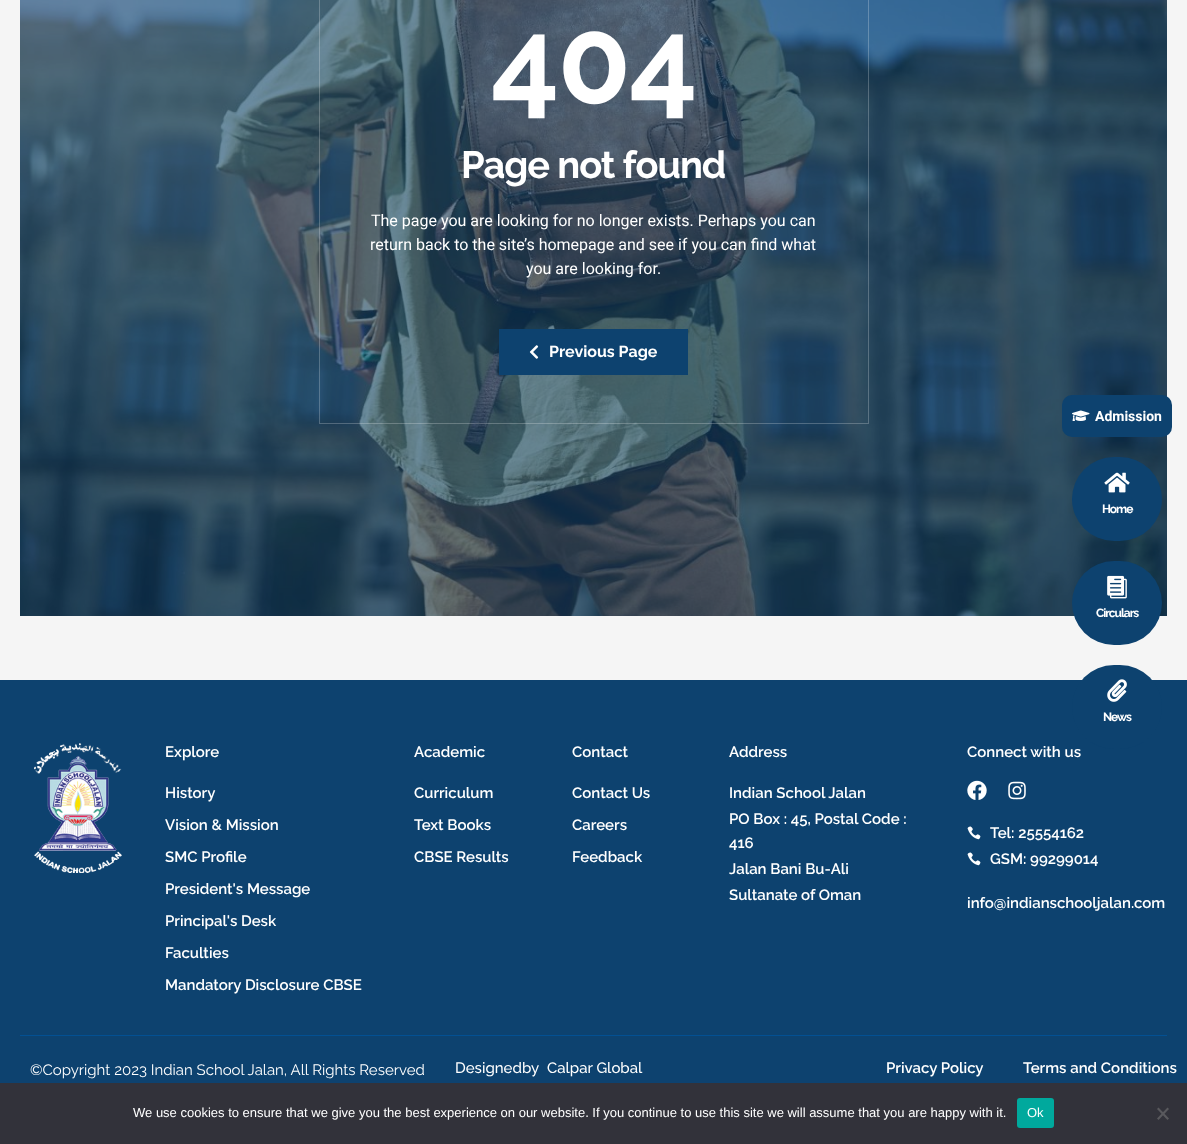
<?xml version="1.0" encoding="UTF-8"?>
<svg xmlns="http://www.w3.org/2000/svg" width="1187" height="1144">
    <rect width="100%" height="100%" fill="#F5F5F5"/>
    <image x="20" y="0" width="1147" height="616" href="img_01.png"/>
    <rect x="319.5" y="-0.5" width="549" height="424" fill="none" stroke="#FFFFFF" stroke-opacity="0.23"/>
    <text x="491" y="103" font-family="Raleway" font-size="120" font-weight="700" letter-spacing="-2" fill="#FFFFFF">404</text>
    <text x="461" y="178" font-family="Raleway" font-size="38" font-weight="700" letter-spacing="-1" fill="#FFFFFF">Page not found</text>
    <text x="371" y="226" font-family="Roboto" font-size="16" fill="#FFFFFF">The page you are looking for no longer exists. Perhaps you can</text>
    <text x="370" y="250" font-family="Roboto" font-size="16" fill="#FFFFFF">return back to the site’s homepage and see if you can find what</text>
    <text x="526" y="274" font-family="Roboto" font-size="16" fill="#FFFFFF">you are looking for.</text>
    <rect x="499" y="329" width="189" height="46" fill="#0D426F"/>
    <image x="529" y="345" width="10" height="14" href="img_02.png"/>
    <text x="549" y="357" font-family="Raleway" font-size="16" font-weight="700" fill="#FFFFFF">Previous Page</text>
    <rect x="0" y="680" width="1187" height="403" fill="#0D426F"/>
    <rect x="20" y="1035" width="1147" height="1" fill="#035092"/>
    <image x="34" y="743" width="88" height="130" href="img_03.png"/>
    <text x="165" y="757" font-family="Raleway" font-size="15" font-weight="600" fill="#FFFFFF">Explore</text>
    <text x="165" y="798" font-family="Raleway" font-size="15" font-weight="600" fill="#FFFFFF">History</text>
    <text x="165" y="830" font-family="Raleway" font-size="15" font-weight="600" fill="#FFFFFF">Vision &amp; Mission</text>
    <text x="165" y="862" font-family="Raleway" font-size="15" font-weight="600" fill="#FFFFFF">SMC Profile</text>
    <text x="165" y="894" font-family="Raleway" font-size="15" font-weight="600" fill="#FFFFFF">President's Message</text>
    <text x="165" y="926" font-family="Raleway" font-size="15" font-weight="600" fill="#FFFFFF">Principal's Desk</text>
    <text x="165" y="958" font-family="Raleway" font-size="15" font-weight="600" fill="#FFFFFF">Faculties</text>
    <text x="165" y="990" font-family="Raleway" font-size="15" font-weight="600" fill="#FFFFFF">Mandatory Disclosure CBSE</text>
    <text x="414" y="757" font-family="Raleway" font-size="15" font-weight="600" fill="#FFFFFF">Academic</text>
    <text x="414" y="798" font-family="Raleway" font-size="15" font-weight="600" fill="#FFFFFF">Curriculum</text>
    <text x="414" y="830" font-family="Raleway" font-size="15" font-weight="600" fill="#FFFFFF">Text Books</text>
    <text x="414" y="862" font-family="Raleway" font-size="15" font-weight="600" fill="#FFFFFF">CBSE Results</text>
    <text x="572" y="757" font-family="Raleway" font-size="15" font-weight="600" fill="#FFFFFF">Contact</text>
    <text x="572" y="798" font-family="Raleway" font-size="15" font-weight="600" fill="#FFFFFF">Contact Us</text>
    <text x="572" y="830" font-family="Raleway" font-size="15" font-weight="600" fill="#FFFFFF">Careers</text>
    <text x="572" y="862" font-family="Raleway" font-size="15" font-weight="600" fill="#FFFFFF">Feedback</text>
    <text x="729" y="757" font-family="Raleway" font-size="15" font-weight="600" fill="#FFFFFF">Address</text>
    <text font-family="Raleway" font-size="15" font-weight="600" fill="#FFFFFF">
        <tspan x="729" y="798">Indian School Jalan</tspan>
        <tspan x="729" y="824">PO Box : 45, Postal Code :</tspan>
        <tspan x="729" y="848">416</tspan>
        <tspan x="729" y="874">Jalan Bani Bu-Ali</tspan>
        <tspan x="729" y="900">Sultanate of Oman</tspan>
    </text>
    <text x="967" y="757" font-family="Raleway" font-size="15" font-weight="600" fill="#FFFFFF">Connect with us</text>
    <image x="967" y="780" width="20" height="20" href="img_04.png"/>
    <image x="1008" y="781" width="18" height="19" href="img_05.png"/>
    <image x="967" y="826" width="14" height="14" href="img_06.png"/>
    <text x="990" y="838" font-family="Raleway" font-size="15" font-weight="600" fill="#FFFFFF">Tel: 25554162</text>
    <image x="967" y="852" width="14" height="14" href="img_06.png"/>
    <text x="990" y="864" font-family="Raleway" font-size="15" font-weight="600" fill="#FFFFFF">GSM: 99299014</text>
    <text x="967" y="908" font-family="Raleway" font-size="15" font-weight="600" fill="#FFFFFF">info@indianschooljalan.com</text>
    <text x="30" y="1075" font-family="Raleway" font-size="15" fill="#FFFFFF">©Copyright 2023 Indian School Jalan, All Rights Reserved</text>
    <text x="455" y="1073" font-family="Raleway" font-size="15" font-weight="500" fill="#FFFFFF">Designedby</text>
    <text x="547" y="1073" font-family="Raleway" font-size="15" font-weight="500" fill="#FFFFFF">Calpar Global</text>
    <text x="886" y="1073" font-family="Raleway" font-size="15" font-weight="600" fill="#FFFFFF">Privacy Policy</text>
    <text x="1023" y="1073" font-family="Raleway" font-size="15" font-weight="600" fill="#FFFFFF">Terms and Conditions</text>
    <rect x="1062" y="395" width="110" height="42" rx="10" fill="#0D426F"/>
    <image x="1072" y="410" width="18" height="11" href="img_07.png"/>
    <text x="1095" y="421" font-family="Roboto" font-size="14" font-weight="700" fill="#FFFFFF">Admission</text>
    <rect x="1072" y="457" width="90" height="84" rx="42" fill="#0D426F"/>
    <image x="1104" y="472" width="26" height="21" href="img_08.png"/>
    <text x="1102" y="513" font-family="Raleway" font-size="12" font-weight="700" letter-spacing="-1" fill="#FFFFFF">Home</text>
    <rect x="1072" y="561" width="90" height="84" rx="42" fill="#0D426F"/>
    <image x="1107" y="575" width="20" height="24" href="img_09.png"/>
    <text x="1096" y="617" font-family="Raleway" font-size="12" font-weight="700" letter-spacing="-1" fill="#FFFFFF">Circulars</text>
    <rect x="1072" y="665" width="90" height="84" rx="42" fill="#0D426F"/>
    <image x="1107" y="679" width="20" height="23" href="img_10.png"/>
    <text x="1103" y="721" font-family="Raleway" font-size="12" font-weight="700" letter-spacing="-1" fill="#FFFFFF">News</text>
    <rect x="0" y="1083" width="1187" height="61" fill="#32323A"/>
    <text x="133" y="1117" font-family="Liberation Sans" font-size="13" fill="#FFFFFF">We use cookies to ensure that we give you the best experience on our website. If you continue to use this site we will assume that you are happy with it.</text>
    <rect x="1017" y="1098" width="37" height="30" rx="3" fill="#00A99D"/>
    <text x="1027" y="1117" font-family="Liberation Sans" font-size="13" fill="#FFFFFF">Ok</text>
    <path d="M 1167.5 1107.5 L 1169 1109 L 1158.5 1120 L 1157 1118.5 Z" fill="#59595D"/>
    <path d="M 1157 1109 L 1158.5 1107.5 L 1169 1118.5 L 1167.5 1120 Z" fill="#59595D"/>
</svg>
